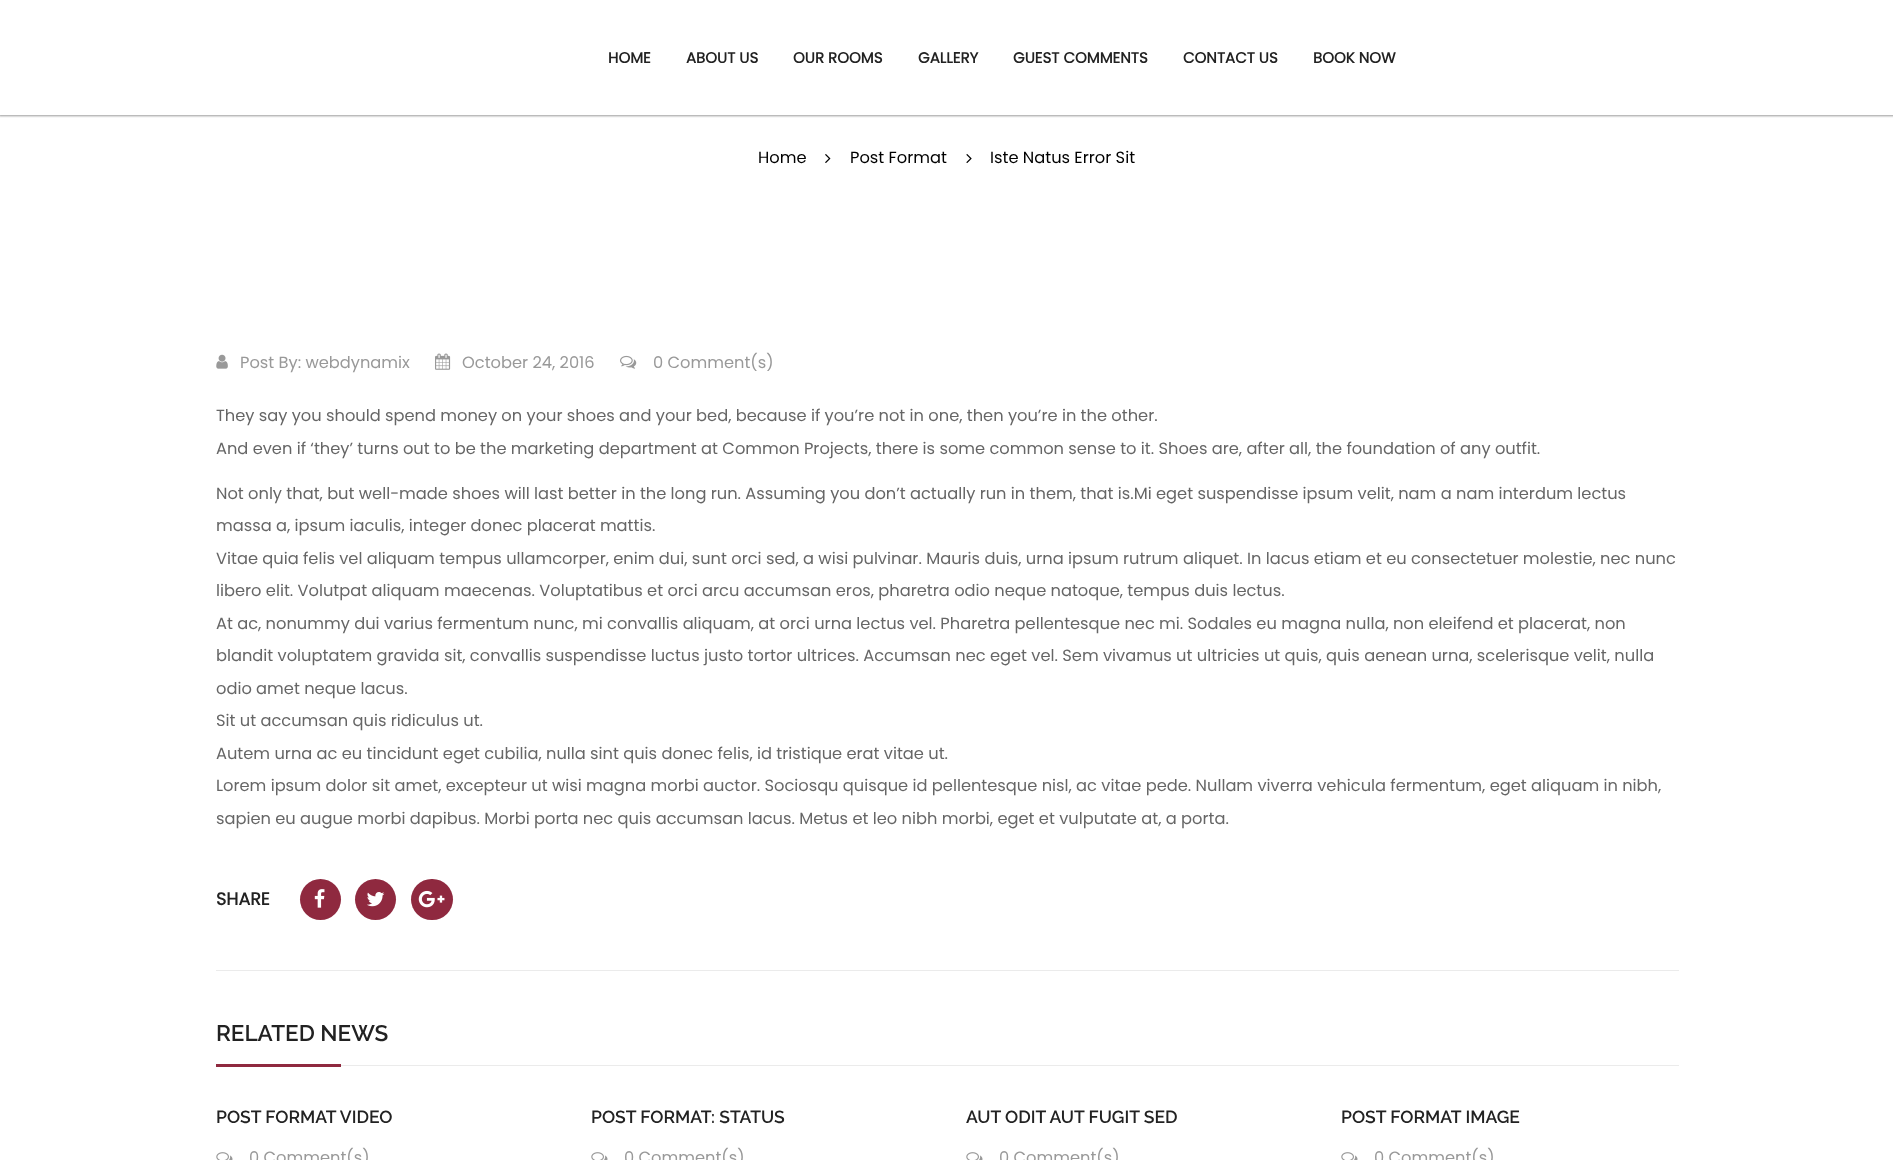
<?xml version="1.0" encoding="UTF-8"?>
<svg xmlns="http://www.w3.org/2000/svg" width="1893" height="1160">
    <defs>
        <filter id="blur1" x="-50%" y="-200%" width="200%" height="500%"><feGaussianBlur stdDeviation="1"/></filter>
    </defs>
    <rect width="100%" height="100%" fill="#FFFFFF"/>
    <rect x="-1" y="-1" width="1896" height="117" fill="#999999" filter="url(#blur1)"/>
    <rect x="0" y="0" width="1893" height="115" fill="#FFFFFF"/>
    <text x="608" y="63" font-family="Poppins" font-size="15" font-weight="700" fill="#222222">HOME</text>
    <text x="686" y="63" font-family="Poppins" font-size="15" font-weight="700" fill="#222222">ABOUT US</text>
    <text x="793" y="63" font-family="Poppins" font-size="15" font-weight="700" fill="#222222">OUR ROOMS</text>
    <text x="918" y="63" font-family="Poppins" font-size="15" font-weight="700" fill="#222222">GALLERY</text>
    <text x="1013" y="63" font-family="Poppins" font-size="15" font-weight="700" fill="#222222">GUEST COMMENTS</text>
    <text x="1183" y="63" font-family="Poppins" font-size="15" font-weight="700" fill="#222222">CONTACT US</text>
    <text x="1313" y="63" font-family="Poppins" font-size="15" font-weight="700" fill="#222222">BOOK NOW</text>
    <text x="758" y="163" font-family="Poppins" font-size="16.25" fill="#000000">Home</text>
    <image x="825" y="154" width="6" height="9" href="img_01.png"/>
    <text x="850" y="163" font-family="Poppins" font-size="16.25" fill="#000000">Post Format</text>
    <image x="966" y="154" width="6" height="9" href="img_02.png"/>
    <text x="990" y="163" font-family="Poppins" font-size="16.25" fill="#000000">Iste Natus Error Sit</text>
    <image x="216" y="354" width="12" height="15" href="img_03.png"/>
    <text x="240" y="368" font-family="Poppins" font-size="16.25" fill="#999999">Post By: webdynamix</text>
    <image x="435" y="353" width="16" height="17" href="img_04.png"/>
    <text x="462" y="368" font-family="Poppins" font-size="16.25" fill="#999999">October 24, 2016</text>
    <image x="620" y="355" width="17" height="14" href="img_05.png"/>
    <text x="653" y="368" font-family="Poppins" font-size="16.25" fill="#999999">0 Comment(s)</text>
    <text x="216" y="421" font-family="Poppins" font-size="16.25" fill="#666666">They say you should spend money on your shoes and your bed, because if you’re not in one, then you’re in the other.</text>
    <text x="216" y="454" font-family="Poppins" font-size="16.25" fill="#666666">And even if ‘they’ turns out to be the marketing department at Common Projects, there is some common sense to it. Shoes are, after all, the foundation of any outfit.</text>
    <text font-family="Poppins" font-size="16.25" fill="#666666">
        <tspan x="216" y="499">Not only that, but well-made shoes will last better in the long run. Assuming you don’t actually run in them, that is.Mi eget suspendisse ipsum velit, nam a nam interdum lectus</tspan>
        <tspan x="216" y="531">massa a, ipsum iaculis, integer donec placerat mattis.</tspan>
    </text>
    <text font-family="Poppins" font-size="16.25" fill="#666666">
        <tspan x="216" y="564">Vitae quia felis vel aliquam tempus ullamcorper, enim dui, sunt orci sed, a wisi pulvinar. Mauris duis, urna ipsum rutrum aliquet. In lacus etiam et eu consectetuer molestie, nec nunc</tspan>
        <tspan x="216" y="596">libero elit. Volutpat aliquam maecenas. Voluptatibus et orci arcu accumsan eros, pharetra odio neque natoque, tempus duis lectus.</tspan>
    </text>
    <text font-family="Poppins" font-size="16.25" fill="#666666">
        <tspan x="216" y="629">At ac, nonummy dui varius fermentum nunc, mi convallis aliquam, at orci urna lectus vel. Pharetra pellentesque nec mi. Sodales eu magna nulla, non eleifend et placerat, non</tspan>
        <tspan x="216" y="661">blandit voluptatem gravida sit, convallis suspendisse luctus justo tortor ultrices. Accumsan nec eget vel. Sem vivamus ut ultricies ut quis, quis aenean urna, scelerisque velit, nulla</tspan>
    </text>
    <text font-family="Poppins" font-size="16.25" fill="#666666">
        <tspan x="216" y="694">odio amet neque lacus.</tspan>
        <tspan x="216" y="726">Sit ut accumsan quis ridiculus ut.</tspan>
    </text>
    <text font-family="Poppins" font-size="16.25" fill="#666666">
        <tspan x="216" y="759">Autem urna ac eu tincidunt eget cubilia, nulla sint quis donec felis, id tristique erat vitae ut.</tspan>
        <tspan x="216" y="791">Lorem ipsum dolor sit amet, excepteur ut wisi magna morbi auctor. Sociosqu quisque id pellentesque nisl, ac vitae pede. Nullam viverra vehicula fermentum, eget aliquam in nibh,</tspan>
    </text>
    <text x="216" y="824" font-family="Poppins" font-size="16.25" fill="#666666">sapien eu augue morbi dapibus. Morbi porta nec quis accumsan lacus. Metus et leo nibh morbi, eget et vulputate at, a porta.</text>
    <rect x="216" y="970" width="1463" height="1" fill="#EBEBEB"/>
    <text x="216" y="905" font-family="Poppins" font-size="17.5" font-weight="700" fill="#222222">SHARE</text>
    <circle cx="320.5" cy="899.5" r="20.5" fill="#8F293F"/>
    <image x="314" y="889" width="11" height="19" href="img_06.png"/>
    <circle cx="375.5" cy="899.5" r="20.5" fill="#8F293F"/>
    <image x="367" y="892" width="18" height="15" href="img_07.png"/>
    <rect x="411" y="879" width="42" height="41" rx="20.5" fill="#8F293F"/>
    <image x="418" y="890" width="27" height="18" href="img_08.png"/>
    <rect x="341" y="1065" width="1338" height="1" fill="#EBEBEB"/>
    <text x="216" y="1041" font-family="Raleway" font-size="22.5" font-weight="600" fill="#222222">RELATED NEWS</text>
    <rect x="216" y="1064" width="125" height="3" fill="#8F293F"/>
    <text x="216" y="1123" font-family="Raleway" font-size="17.5" font-weight="600" fill="#222222">POST FORMAT VIDEO</text>
    <image x="216" y="1152" width="17" height="8" href="img_09.png"/>
    <text x="249" y="1163" font-family="Poppins" font-size="16.25" fill="#999999">0 Comment(s)</text>
    <text x="591" y="1123" font-family="Raleway" font-size="17.5" font-weight="600" fill="#222222">POST FORMAT: STATUS</text>
    <image x="591" y="1152" width="17" height="8" href="img_09.png"/>
    <text x="624" y="1163" font-family="Poppins" font-size="16.25" fill="#999999">0 Comment(s)</text>
    <text x="966" y="1123" font-family="Raleway" font-size="17.5" font-weight="600" fill="#222222">AUT ODIT AUT FUGIT SED</text>
    <image x="966" y="1152" width="17" height="8" href="img_09.png"/>
    <text x="999" y="1163" font-family="Poppins" font-size="16.25" fill="#999999">0 Comment(s)</text>
    <text x="1341" y="1123" font-family="Raleway" font-size="17.5" font-weight="600" fill="#222222">POST FORMAT IMAGE</text>
    <image x="1341" y="1152" width="17" height="8" href="img_09.png"/>
    <text x="1374" y="1163" font-family="Poppins" font-size="16.25" fill="#999999">0 Comment(s)</text>
</svg>
